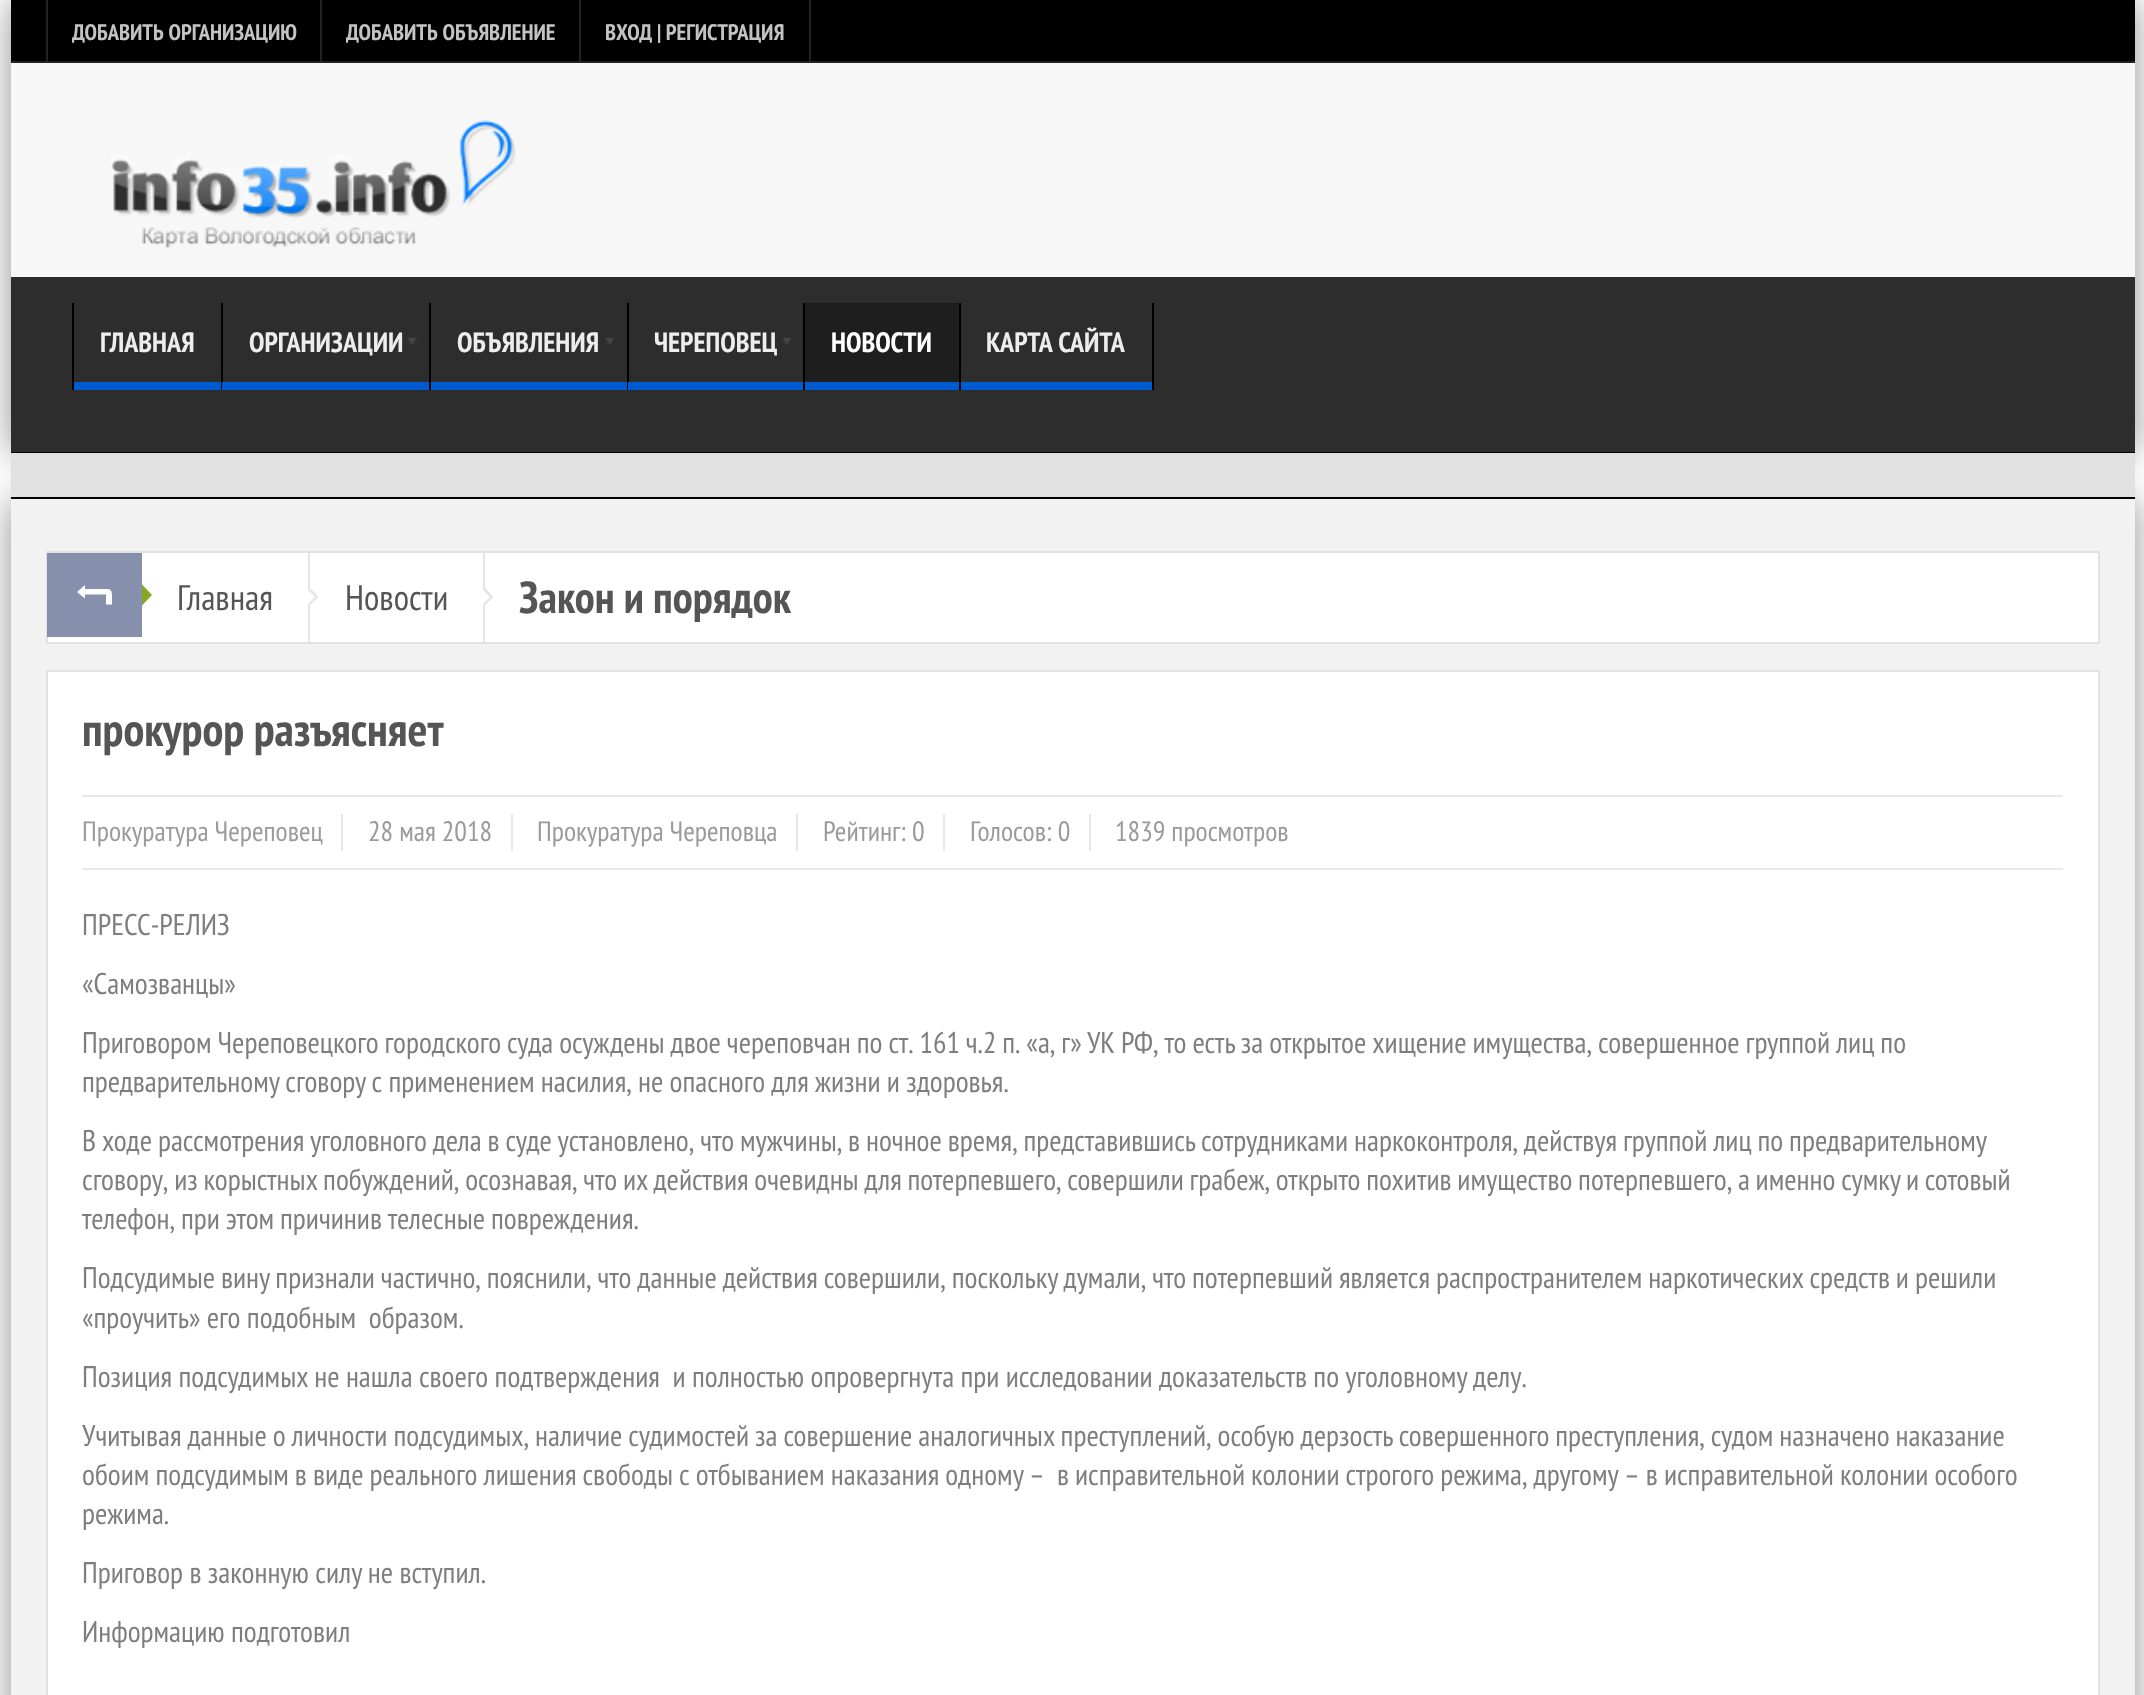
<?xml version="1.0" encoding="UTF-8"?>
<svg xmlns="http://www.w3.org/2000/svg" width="2144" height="1695">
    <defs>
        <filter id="blur1" x="-50%" y="-200%" width="200%" height="500%"><feGaussianBlur stdDeviation="18.5"/></filter>
    </defs>
    <rect width="100%" height="100%" fill="#FFFFFF"/>
    <rect x="11" y="499" width="2124" height="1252" fill="#000000" fill-opacity="0.44" filter="url(#blur1)"/>
    <rect x="11" y="499" width="2124" height="1196" fill="#F2F2F2"/>
    <rect x="11" y="0" width="2124" height="453" fill="#000000" fill-opacity="0.44" filter="url(#blur1)"/>
    <rect x="11" y="63" width="2124" height="214" fill="#F7F7F7"/>
    <rect x="11" y="0" width="2124" height="61" fill="#000000"/>
    <rect x="11" y="61" width="2124" height="2" fill="#222222"/>
    <rect x="320" y="0" width="2" height="63" fill="#222222"/>
    <rect x="46" y="0" width="2" height="63" fill="#222222"/>
    <text x="72" y="40" word-spacing="1" font-family="PT Sans Narrow" font-size="22.5" font-weight="700" fill="#C3C3C3">ДОБАВИТЬ ОРГАНИЗАЦИЮ</text>
    <rect x="579" y="0" width="2" height="63" fill="#222222"/>
    <text x="346" y="40" word-spacing="1" font-family="PT Sans Narrow" font-size="22.5" font-weight="700" fill="#C3C3C3">ДОБАВИТЬ ОБЪЯВЛЕНИЕ</text>
    <rect x="809" y="0" width="2" height="63" fill="#222222"/>
    <text x="605" y="40" font-family="PT Sans Narrow" font-size="22.5" font-weight="700" fill="#C3C3C3">ВХОД | РЕГИСТРАЦИЯ</text>
    <image x="111" y="120" width="405" height="129" href="img_01.png"/>
    <rect x="11" y="277" width="2124" height="175" fill="#2D2D2D"/>
    <rect x="11" y="452" width="2124" height="1" fill="#000000"/>
    <rect x="221" y="303" width="2" height="87" fill="#000000"/>
    <rect x="72" y="303" width="2" height="87" fill="#000000"/>
    <rect x="74" y="382" width="147" height="8" fill="#005BD1"/>
    <text x="100" y="352" font-family="PT Sans Narrow" font-size="28" font-weight="700" fill="#EDEDED">ГЛАВНАЯ</text>
    <rect x="429" y="303" width="2" height="87" fill="#000000"/>
    <image x="407" y="337" width="10" height="8" href="img_02.png"/>
    <rect x="222" y="382" width="207" height="8" fill="#005BD1"/>
    <text x="249" y="352" font-family="PT Sans Narrow" font-size="28" font-weight="700" fill="#EDEDED">ОРГАНИЗАЦИИ</text>
    <rect x="627" y="303" width="2" height="87" fill="#000000"/>
    <image x="605" y="337" width="10" height="8" href="img_03.png"/>
    <rect x="431" y="382" width="196" height="8" fill="#005BD1"/>
    <text x="457" y="352" font-family="PT Sans Narrow" font-size="28" font-weight="700" fill="#EDEDED">ОБЪЯВЛЕНИЯ</text>
    <rect x="803" y="303" width="2" height="87" fill="#000000"/>
    <image x="782" y="337" width="10" height="8" href="img_04.png"/>
    <rect x="628" y="382" width="175" height="8" fill="#005BD1"/>
    <text x="654" y="352" font-family="PT Sans Narrow" font-size="28" font-weight="700" fill="#EDEDED">ЧЕРЕПОВЕЦ</text>
    <rect x="805" y="303" width="154" height="79" fill="#1E1E1E"/>
    <rect x="959" y="303" width="2" height="87" fill="#000000"/>
    <rect x="805" y="382" width="154" height="8" fill="#005BD1"/>
    <text x="831" y="352" font-family="PT Sans Narrow" font-size="28" font-weight="700" fill="#FFFFFF">НОВОСТИ</text>
    <rect x="1152" y="303" width="2" height="87" fill="#000000"/>
    <rect x="961" y="382" width="191" height="8" fill="#005BD1"/>
    <text x="986" y="352" word-spacing="1" font-family="PT Sans Narrow" font-size="28" font-weight="700" fill="#EDEDED">КАРТА САЙТА</text>
    <rect x="11" y="453" width="2124" height="44" fill="#E1E1E1"/>
    <rect x="11" y="497" width="2124" height="2" fill="#000000"/>
    <rect x="47" y="552" width="2052" height="91" fill="#FFFFFF" stroke="#E1E1E1" stroke-width="2"/>
    <rect x="47" y="553" width="95" height="84" fill="#868FAC"/>
    <path d="M 85 594.5 V 598.5 L 77 592 L 85 585 V 589 H 104 C 109.5 589 112 589 112 595 V 604.5 H 106 V 594.5 Z" fill="#FFFFFF"/>
    <path d="M 142 605.5 V 584.5 L 152 595 Z" fill="#86A821"/>
    <rect x="308" y="553" width="2" height="89" fill="#E5E5E5"/>
    <text x="177" y="610" font-family="PT Sans Narrow" font-size="35.5" fill="#555555">Главная</text>
    <path d="M 308 607 V 586 L 318.5 597 Z" fill="#E5E5E5"/>
    <path d="M 308 604 V 590 L 315 597 Z" fill="#FFFFFF"/>
    <rect x="483" y="553" width="2" height="89" fill="#E5E5E5"/>
    <text x="345" y="610" font-family="PT Sans Narrow" font-size="35.5" fill="#555555">Новости</text>
    <path d="M 483 607 V 586 L 493.5 597 Z" fill="#E5E5E5"/>
    <path d="M 483 604 V 590 L 490 597 Z" fill="#FFFFFF"/>
    <text x="519" y="613" font-family="PT Sans Narrow" font-size="44.75" font-weight="700" fill="#555555">Закон и порядок</text>
    <rect x="47" y="671" width="2052" height="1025" fill="#FFFFFF" stroke="#E1E1E1" stroke-width="2"/>
    <text x="82" y="746" font-family="PT Sans Narrow" font-size="46.75" font-weight="700" fill="#555555">прокурор разъясняет</text>
    <rect x="82" y="795" width="1981" height="2" fill="#E9E9E9"/>
    <rect x="82" y="868" width="1981" height="2" fill="#E9E9E9"/>
    <rect x="341" y="814" width="2" height="37" fill="#E7E7E7"/>
    <text x="82" y="841" font-family="PT Sans Narrow" font-size="28" fill="#9A9A9A">Прокуратура Череповец</text>
    <rect x="511" y="814" width="2" height="37" fill="#E7E7E7"/>
    <text x="368" y="841" font-family="PT Sans Narrow" font-size="28" fill="#9A9A9A">28 мая 2018</text>
    <rect x="796" y="814" width="2" height="37" fill="#E7E7E7"/>
    <text x="537" y="841" font-family="PT Sans Narrow" font-size="28" fill="#9A9A9A">Прокуратура Череповца</text>
    <rect x="943" y="814" width="2" height="37" fill="#E7E7E7"/>
    <text x="823" y="841" font-family="PT Sans Narrow" font-size="28" fill="#9A9A9A">Рейтинг: 0</text>
    <rect x="1089" y="814" width="2" height="37" fill="#E7E7E7"/>
    <text x="970" y="841" font-family="PT Sans Narrow" font-size="28" fill="#9A9A9A">Голосов: 0</text>
    <text x="1115" y="841" font-family="PT Sans Narrow" font-size="28" fill="#9A9A9A">1839 просмотров</text>
    <text font-family="PT Sans Narrow" font-size="29.87" fill="#7E7E7E" xml:space="preserve"><tspan x="82" y="935">ПРЕСС-РЕЛИЗ</tspan><tspan x="82" y="994">«Самозванцы»</tspan><tspan x="82" y="1053" word-spacing="-0.4">Приговором Череповецкого городского суда осуждены двое череповчан по ст. 161 ч.2 п. «а, г» УК РФ, то есть за открытое хищение имущества, совершенное группой лиц по</tspan><tspan x="82" y="1092" word-spacing="-0.1">предварительному сговору с применением насилия, не опасного для жизни и здоровья.</tspan><tspan x="82" y="1151" word-spacing="-0.5">В ходе рассмотрения уголовного дела в суде установлено, что мужчины, в ночное время, представившись сотрудниками наркоконтроля, действуя группой лиц по предварительному</tspan><tspan x="82" y="1190" word-spacing="-0.6">сговору, из корыстных побуждений, осознавая, что их действия очевидны для потерпевшего, совершили грабеж, открыто похитив имущество потерпевшего, а именно сумку и сотовый</tspan><tspan x="82" y="1229" word-spacing="-0.5">телефон, при этом причинив телесные повреждения.</tspan><tspan x="82" y="1288" word-spacing="-0.4">Подсудимые вину признали частично, пояснили, что данные действия совершили, поскольку думали, что потерпевший является распространителем наркотических средств и решили</tspan><tspan x="82" y="1328">«проучить» его подобным  образом.</tspan><tspan x="82" y="1387">Позиция подсудимых не нашла своего подтверждения  и полностью опровергнута при исследовании доказательств по уголовному делу.</tspan><tspan x="82" y="1446" word-spacing="-0.4">Учитывая данные о личности подсудимых, наличие судимостей за совершение аналогичных преступлений, особую дерзость совершенного преступления, судом назначено наказание</tspan><tspan x="82" y="1485" word-spacing="-0.3">обоим подсудимым в виде реального лишения свободы с отбыванием наказания одному –  в исправительной колонии строгого режима, другому – в исправительной колонии особого</tspan><tspan x="82" y="1524">режима.</tspan><tspan x="82" y="1583">Приговор в законную силу не вступил.</tspan><tspan x="82" y="1642">Информацию подготовил</tspan></text>
</svg>
